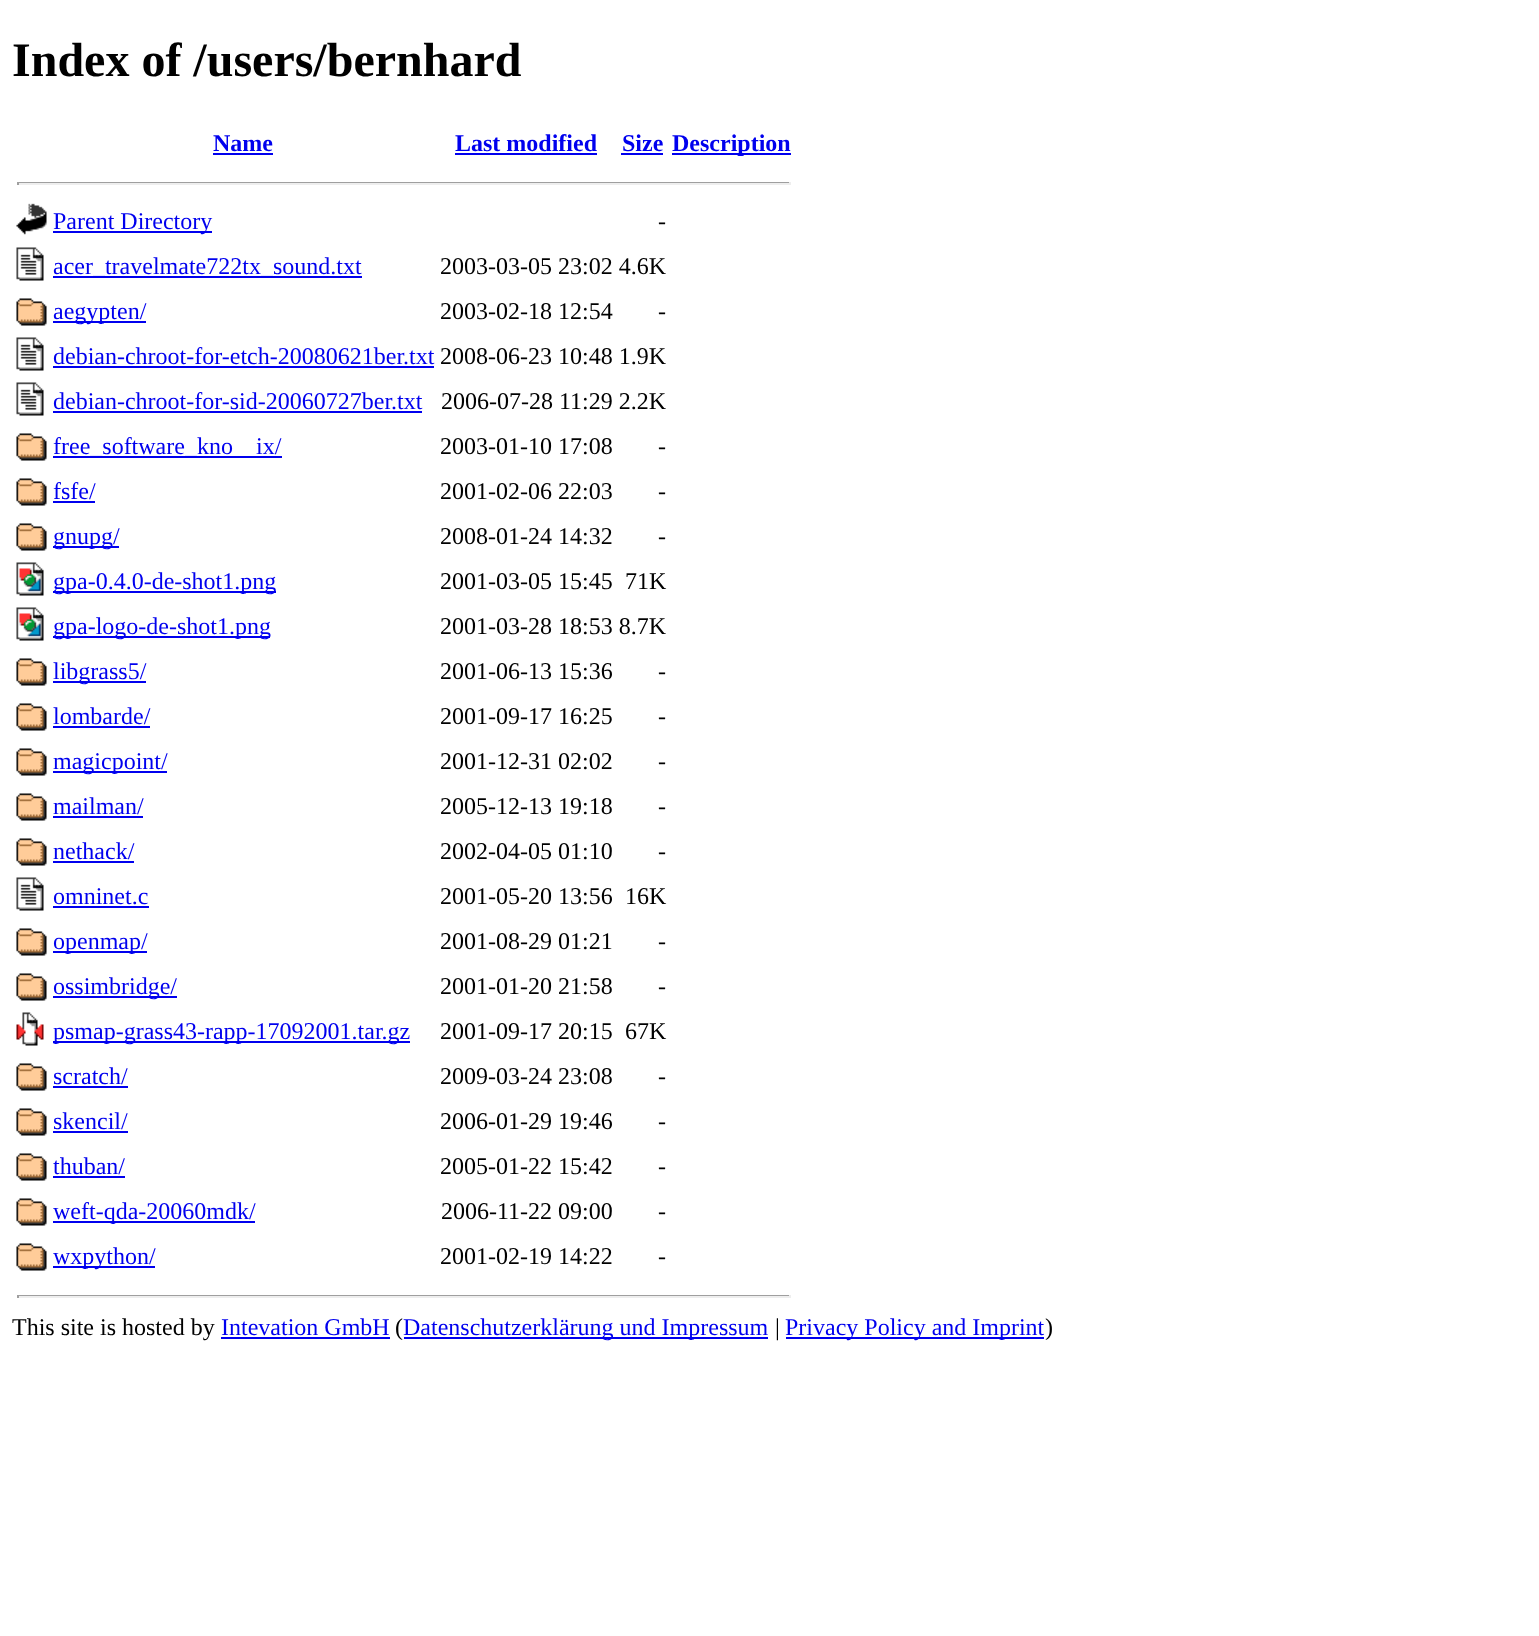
<?xml version="1.0" encoding="UTF-8"?>
<svg xmlns="http://www.w3.org/2000/svg" width="1539" height="1636">
    <rect width="100%" height="100%" fill="#FFFFFF"/>
    <text x="12" y="76" font-family="Liberation Serif" font-size="48" font-weight="700" fill="#000000">Index of /users/bernhard</text>
    <text x="213" y="151" font-family="Liberation Serif" font-size="24" font-weight="700" fill="#0000EE">Name</text>
    <rect x="213" y="153" width="60" height="2" fill="#0000EE"/>
    <text x="455" y="151" font-family="Liberation Serif" font-size="24" font-weight="700" fill="#0000EE">Last modified</text>
    <rect x="455" y="153" width="142" height="2" fill="#0000EE"/>
    <text x="622" y="151" font-family="Liberation Serif" font-size="24" font-weight="700" fill="#0000EE">Size</text>
    <rect x="621" y="153" width="42" height="2" fill="#0000EE"/>
    <rect x="672" y="153" width="119" height="2" fill="#0000EE"/>
    <text x="672" y="151" font-family="Liberation Serif" font-size="24" font-weight="700" fill="#0000EE">Description</text>
    <rect x="17" y="182" width="774" height="1" fill="#9F9F9F"/>
    <rect x="789" y="182" width="2" height="3" fill="#EEEEEE"/>
    <rect x="17" y="183" width="774" height="2" fill="#EEEEEE"/>
    <rect x="17" y="182" width="2" height="3" fill="#9F9F9F"/>
    <image x="16" y="203" width="31" height="32" href="img_01.png"/>
    <rect x="53" y="231" width="159" height="2" fill="#0000EE"/>
    <text x="53" y="229" font-family="Liberation Serif" font-size="24" fill="#0000EE">Parent Directory</text>
    <text x="658" y="229" font-family="Liberation Serif" font-size="24" fill="#000000">-</text>
    <image x="16" y="247" width="28" height="34" href="img_02.png"/>
    <rect x="53" y="276" width="309" height="2" fill="#0000EE"/>
    <text x="53" y="274" font-family="Liberation Serif" font-size="24" fill="#0000EE">acer_travelmate722tx_sound.txt</text>
    <text x="440" y="274" font-family="Liberation Serif" font-size="24" fill="#000000">2003-03-05 23:02 4.6K</text>
    <image x="16" y="298" width="31" height="28" href="img_03.png"/>
    <rect x="53" y="321" width="93" height="2" fill="#0000EE"/>
    <text x="53" y="319" font-family="Liberation Serif" font-size="24" fill="#0000EE">aegypten/</text>
    <text x="440" y="319" font-family="Liberation Serif" font-size="24" fill="#000000">2003-02-18 12:54</text>
    <text x="658" y="319" font-family="Liberation Serif" font-size="24" fill="#000000">-</text>
    <image x="16" y="337" width="28" height="34" href="img_02.png"/>
    <text x="53" y="364" font-family="Liberation Serif" font-size="24" fill="#0000EE">debian-chroot-for-etch-20080621ber.txt</text>
    <rect x="53" y="366" width="381" height="2" fill="#0000EE"/>
    <text x="440" y="364" font-family="Liberation Serif" font-size="24" fill="#000000">2008-06-23 10:48 1.9K</text>
    <image x="16" y="382" width="28" height="34" href="img_02.png"/>
    <text x="53" y="409" font-family="Liberation Serif" font-size="24" fill="#0000EE">debian-chroot-for-sid-20060727ber.txt</text>
    <rect x="53" y="411" width="369" height="2" fill="#0000EE"/>
    <text x="441" y="409" font-family="Liberation Serif" font-size="24" fill="#000000">2006-07-28 11:29 2.2K</text>
    <image x="16" y="433" width="31" height="28" href="img_03.png"/>
    <rect x="53" y="456" width="229" height="2" fill="#0000EE"/>
    <text x="53" y="454" font-family="Liberation Serif" font-size="24" fill="#0000EE">free_software_kno</text>
    <text x="256" y="454" font-family="Liberation Serif" font-size="24" fill="#0000EE">ix/</text>
    <text x="440" y="454" font-family="Liberation Serif" font-size="24" fill="#000000">2003-01-10 17:08</text>
    <text x="658" y="454" font-family="Liberation Serif" font-size="24" fill="#000000">-</text>
    <image x="16" y="478" width="31" height="28" href="img_03.png"/>
    <text x="53" y="499" font-family="Liberation Serif" font-size="24" fill="#0000EE">fsfe/</text>
    <rect x="53" y="501" width="42" height="2" fill="#0000EE"/>
    <text x="440" y="499" font-family="Liberation Serif" font-size="24" fill="#000000">2001-02-06 22:03</text>
    <text x="658" y="499" font-family="Liberation Serif" font-size="24" fill="#000000">-</text>
    <image x="16" y="523" width="31" height="28" href="img_03.png"/>
    <rect x="53" y="546" width="66" height="2" fill="#0000EE"/>
    <text x="53" y="544" font-family="Liberation Serif" font-size="24" fill="#0000EE">gnupg/</text>
    <text x="440" y="544" font-family="Liberation Serif" font-size="24" fill="#000000">2008-01-24 14:32</text>
    <text x="658" y="544" font-family="Liberation Serif" font-size="24" fill="#000000">-</text>
    <image x="16" y="562" width="28" height="34" href="img_04.png"/>
    <rect x="53" y="591" width="223" height="2" fill="#0000EE"/>
    <text x="53" y="589" font-family="Liberation Serif" font-size="24" fill="#0000EE">gpa-0.4.0-de-shot1.png</text>
    <text x="440" y="589" font-family="Liberation Serif" font-size="24" fill="#000000">2001-03-05 15:45</text>
    <text x="625" y="589" font-family="Liberation Serif" font-size="24" fill="#000000">71K</text>
    <image x="16" y="607" width="28" height="34" href="img_04.png"/>
    <rect x="53" y="636" width="217" height="2" fill="#0000EE"/>
    <text x="53" y="634" font-family="Liberation Serif" font-size="24" fill="#0000EE">gpa-logo-de-shot1.png</text>
    <text x="440" y="634" font-family="Liberation Serif" font-size="24" fill="#000000">2001-03-28 18:53 8.7K</text>
    <image x="16" y="658" width="31" height="28" href="img_03.png"/>
    <rect x="53" y="681" width="93" height="2" fill="#0000EE"/>
    <text x="53" y="679" font-family="Liberation Serif" font-size="24" fill="#0000EE">libgrass5/</text>
    <text x="440" y="679" font-family="Liberation Serif" font-size="24" fill="#000000">2001-06-13 15:36</text>
    <text x="658" y="679" font-family="Liberation Serif" font-size="24" fill="#000000">-</text>
    <image x="16" y="703" width="31" height="28" href="img_03.png"/>
    <text x="53" y="724" font-family="Liberation Serif" font-size="24" fill="#0000EE">lombarde/</text>
    <rect x="53" y="726" width="97" height="2" fill="#0000EE"/>
    <text x="440" y="724" font-family="Liberation Serif" font-size="24" fill="#000000">2001-09-17 16:25</text>
    <text x="658" y="724" font-family="Liberation Serif" font-size="24" fill="#000000">-</text>
    <image x="16" y="748" width="31" height="28" href="img_03.png"/>
    <rect x="53" y="771" width="114" height="2" fill="#0000EE"/>
    <text x="53" y="769" font-family="Liberation Serif" font-size="24" fill="#0000EE">magicpoint/</text>
    <text x="440" y="769" font-family="Liberation Serif" font-size="24" fill="#000000">2001-12-31 02:02</text>
    <text x="658" y="769" font-family="Liberation Serif" font-size="24" fill="#000000">-</text>
    <image x="16" y="793" width="31" height="28" href="img_03.png"/>
    <text x="53" y="814" font-family="Liberation Serif" font-size="24" fill="#0000EE">mailman/</text>
    <rect x="53" y="816" width="90" height="2" fill="#0000EE"/>
    <text x="440" y="814" font-family="Liberation Serif" font-size="24" fill="#000000">2005-12-13 19:18</text>
    <text x="658" y="814" font-family="Liberation Serif" font-size="24" fill="#000000">-</text>
    <image x="16" y="838" width="31" height="28" href="img_03.png"/>
    <text x="53" y="859" font-family="Liberation Serif" font-size="24" fill="#0000EE">nethack/</text>
    <rect x="53" y="861" width="81" height="2" fill="#0000EE"/>
    <text x="440" y="859" font-family="Liberation Serif" font-size="24" fill="#000000">2002-04-05 01:10</text>
    <text x="658" y="859" font-family="Liberation Serif" font-size="24" fill="#000000">-</text>
    <image x="16" y="877" width="28" height="34" href="img_02.png"/>
    <text x="53" y="904" font-family="Liberation Serif" font-size="24" fill="#0000EE">omninet.c</text>
    <rect x="53" y="906" width="96" height="2" fill="#0000EE"/>
    <text x="440" y="904" font-family="Liberation Serif" font-size="24" fill="#000000">2001-05-20 13:56</text>
    <text x="625" y="904" font-family="Liberation Serif" font-size="24" fill="#000000">16K</text>
    <image x="16" y="928" width="31" height="28" href="img_03.png"/>
    <rect x="53" y="951" width="94" height="2" fill="#0000EE"/>
    <text x="53" y="949" font-family="Liberation Serif" font-size="24" fill="#0000EE">openmap/</text>
    <text x="440" y="949" font-family="Liberation Serif" font-size="24" fill="#000000">2001-08-29 01:21</text>
    <text x="658" y="949" font-family="Liberation Serif" font-size="24" fill="#000000">-</text>
    <image x="16" y="973" width="31" height="28" href="img_03.png"/>
    <rect x="53" y="996" width="124" height="2" fill="#0000EE"/>
    <text x="53" y="994" font-family="Liberation Serif" font-size="24" fill="#0000EE">ossimbridge/</text>
    <text x="440" y="994" font-family="Liberation Serif" font-size="24" fill="#000000">2001-01-20 21:58</text>
    <text x="658" y="994" font-family="Liberation Serif" font-size="24" fill="#000000">-</text>
    <image x="16" y="1012" width="28" height="34" href="img_05.png"/>
    <rect x="53" y="1041" width="357" height="2" fill="#0000EE"/>
    <text x="53" y="1039" font-family="Liberation Serif" font-size="24" fill="#0000EE">psmap-grass43-rapp-17092001.tar.gz</text>
    <text x="440" y="1039" font-family="Liberation Serif" font-size="24" fill="#000000">2001-09-17 20:15</text>
    <text x="625" y="1039" font-family="Liberation Serif" font-size="24" fill="#000000">67K</text>
    <image x="16" y="1063" width="31" height="28" href="img_03.png"/>
    <text x="53" y="1084" font-family="Liberation Serif" font-size="24" fill="#0000EE">scratch/</text>
    <rect x="53" y="1086" width="75" height="2" fill="#0000EE"/>
    <text x="440" y="1084" font-family="Liberation Serif" font-size="24" fill="#000000">2009-03-24 23:08</text>
    <text x="658" y="1084" font-family="Liberation Serif" font-size="24" fill="#000000">-</text>
    <image x="16" y="1108" width="31" height="28" href="img_03.png"/>
    <text x="53" y="1129" font-family="Liberation Serif" font-size="24" fill="#0000EE">skencil/</text>
    <rect x="53" y="1131" width="75" height="2" fill="#0000EE"/>
    <text x="440" y="1129" font-family="Liberation Serif" font-size="24" fill="#000000">2006-01-29 19:46</text>
    <text x="658" y="1129" font-family="Liberation Serif" font-size="24" fill="#000000">-</text>
    <image x="16" y="1153" width="31" height="28" href="img_03.png"/>
    <text x="53" y="1174" font-family="Liberation Serif" font-size="24" fill="#0000EE">thuban/</text>
    <rect x="53" y="1176" width="72" height="2" fill="#0000EE"/>
    <text x="440" y="1174" font-family="Liberation Serif" font-size="24" fill="#000000">2005-01-22 15:42</text>
    <text x="658" y="1174" font-family="Liberation Serif" font-size="24" fill="#000000">-</text>
    <image x="16" y="1198" width="31" height="28" href="img_03.png"/>
    <rect x="53" y="1221" width="202" height="2" fill="#0000EE"/>
    <text x="53" y="1219" font-family="Liberation Serif" font-size="24" fill="#0000EE">weft-qda-20060mdk/</text>
    <text x="441" y="1219" font-family="Liberation Serif" font-size="24" fill="#000000">2006-11-22 09:00</text>
    <text x="658" y="1219" font-family="Liberation Serif" font-size="24" fill="#000000">-</text>
    <image x="16" y="1243" width="31" height="28" href="img_03.png"/>
    <rect x="53" y="1266" width="102" height="2" fill="#0000EE"/>
    <text x="53" y="1264" font-family="Liberation Serif" font-size="24" fill="#0000EE">wxpython/</text>
    <text x="440" y="1264" font-family="Liberation Serif" font-size="24" fill="#000000">2001-02-19 14:22</text>
    <text x="658" y="1264" font-family="Liberation Serif" font-size="24" fill="#000000">-</text>
    <rect x="17" y="1295" width="774" height="1" fill="#9F9F9F"/>
    <rect x="789" y="1295" width="2" height="3" fill="#EEEEEE"/>
    <rect x="17" y="1296" width="774" height="2" fill="#EEEEEE"/>
    <rect x="17" y="1295" width="2" height="3" fill="#9F9F9F"/>
    <text x="12" y="1335" font-family="Liberation Serif" font-size="24" fill="#000000">This site is hosted by</text>
    <text x="221" y="1335" font-family="Liberation Serif" font-size="24" fill="#0000EE">Intevation GmbH</text>
    <rect x="221" y="1337" width="169" height="2" fill="#0000EE"/>
    <text x="395" y="1335" font-family="Liberation Serif" font-size="24" fill="#000000">(</text>
    <rect x="404" y="1337" width="364" height="2" fill="#0000EE"/>
    <text x="403" y="1335" font-family="Liberation Serif" font-size="24" fill="#0000EE">Datenschutzerklärung und Impressum</text>
    <text x="775" y="1335" font-family="Liberation Serif" font-size="24" fill="#000000">|</text>
    <rect x="786" y="1337" width="258" height="2" fill="#0000EE"/>
    <text x="785" y="1335" font-family="Liberation Serif" font-size="24" fill="#0000EE">Privacy Policy and Imprint</text>
    <text x="1045" y="1335" font-family="Liberation Serif" font-size="24" fill="#000000">)</text>
</svg>
